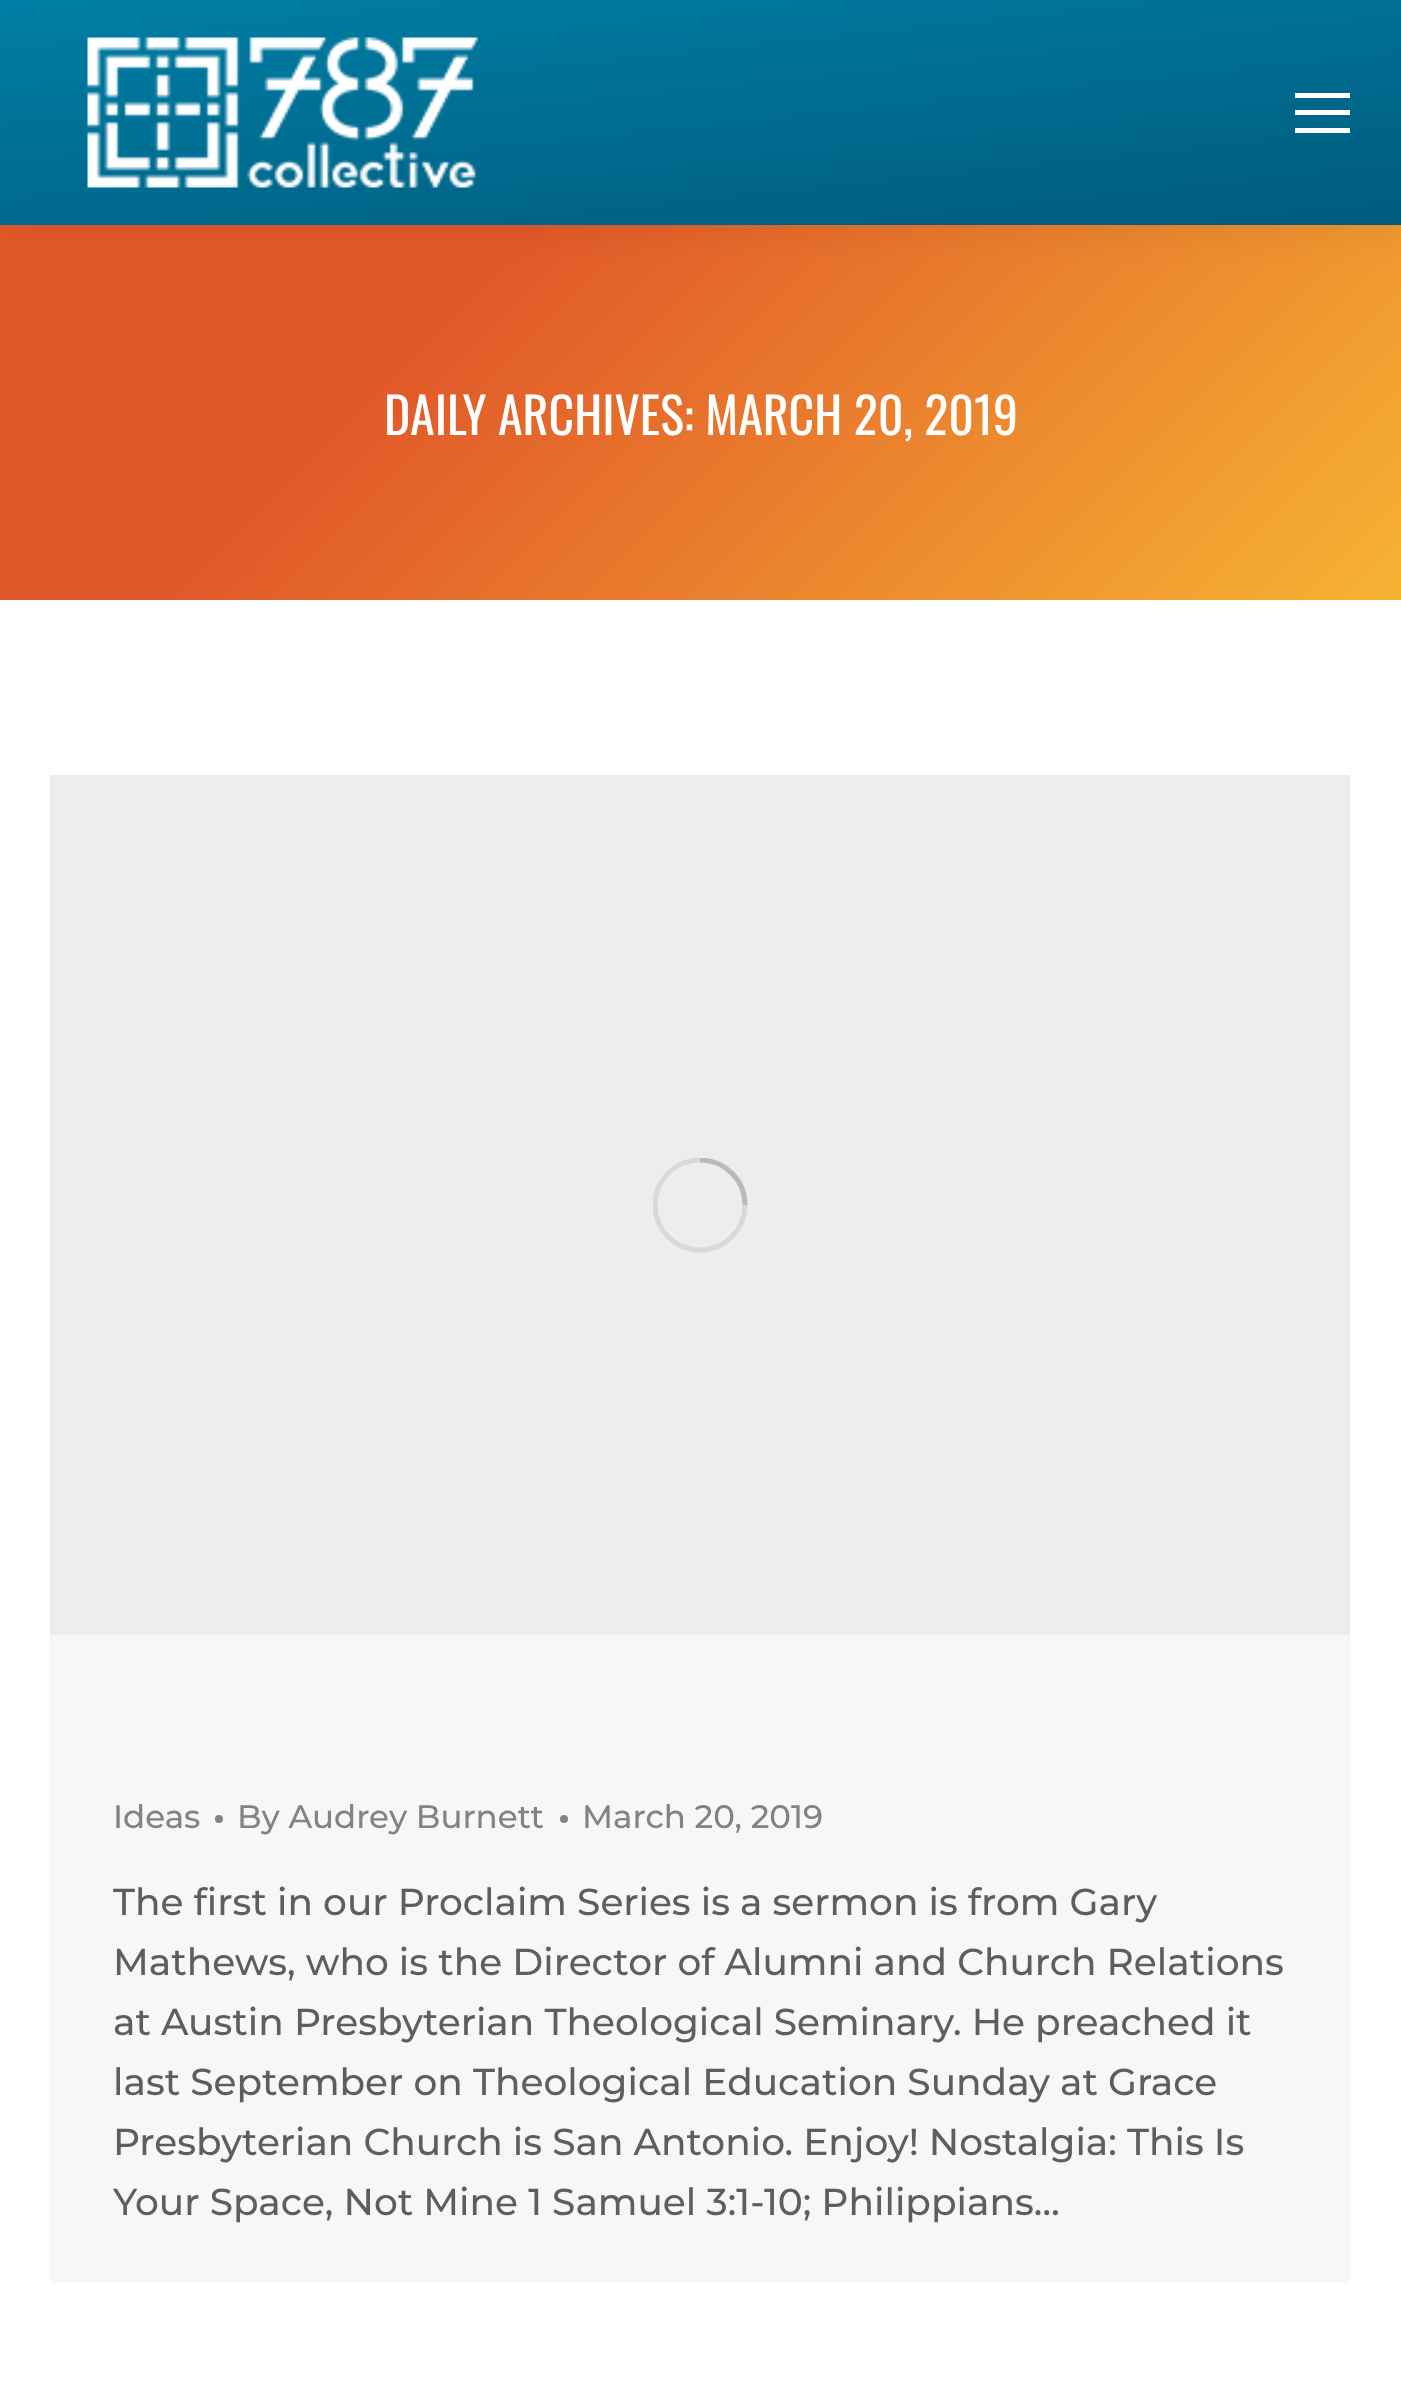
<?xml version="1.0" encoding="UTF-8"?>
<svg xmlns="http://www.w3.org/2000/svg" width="1401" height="2387">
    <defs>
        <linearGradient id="g1" gradientUnits="userSpaceOnUse" x1="257" y1="-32" x2="1146" y2="857"><stop offset="0.3" stop-color="#E15829"/><stop offset="1" stop-color="#F6B333"/></linearGradient>
        <filter id="blur1" x="-50%" y="-200%" width="200%" height="500%"><feGaussianBlur stdDeviation="19"/></filter>
        <linearGradient id="g2" gradientUnits="userSpaceOnUse" x1="721" y1="297" x2="682" y2="-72"><stop offset="0" stop-color="#005B7D"/><stop offset="1" stop-color="#007EA5"/></linearGradient>
        <clipPath id="clip1"><rect x="653" y="1158" width="95" height="95"/></clipPath>
    </defs>
    <rect width="100%" height="100%" fill="#FFFFFF"/>
    <rect x="0" y="225" width="1401" height="375" fill="url(#g1)"/>
    <rect x="-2" y="-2" width="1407" height="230" fill="#000000" fill-opacity="0.07" filter="url(#blur1)"/>
    <rect x="0" y="0" width="1401" height="225" fill="url(#g2)"/>
    <image x="87" y="37" width="391" height="151" href="img_01.png"/>
    <rect x="1295" y="110" width="55" height="5" fill="#FFFFFF"/>
    <rect x="1295" y="93" width="55" height="5" fill="#FFFFFF"/>
    <rect x="1295" y="128" width="55" height="5" fill="#FFFFFF"/>
    <text x="384" y="435" font-family="Oswald" font-size="50" fill="#FFFFFF">DAILY ARCHIVES: MARCH 20, 2019</text>
    <rect x="50" y="1635" width="1300" height="648" fill="#F7F7F7"/>
    <rect x="50" y="775" width="1300" height="860" fill="#EDEDED"/>
    <g clip-path="url(#clip1)">
        <circle cx="700" cy="1205" r="45" fill="none" stroke="#D9D9D9" stroke-width="5"/>
        <path d="M 745 1205 C 745 1180 725 1160 700 1160" fill="none" stroke="#5E5E5E" stroke-opacity="0.25" stroke-width="5"/>
    </g>
    <text x="113" y="1828" font-family="Montserrat" font-size="32.5" font-weight="500" fill="#878181">Ideas</text>
    <circle cx="219" cy="1819" r="4" fill="#878181"/>
    <text x="237" y="1828" font-family="Montserrat" font-size="32.5" font-weight="500" fill="#878181">By Audrey Burnett</text>
    <circle cx="564" cy="1819" r="4" fill="#878181"/>
    <text x="582" y="1828" font-family="Montserrat" font-size="32.5" font-weight="500" fill="#878181">March 20, 2019</text>
    <text font-family="Montserrat" font-size="37.5" font-weight="500" fill="#5E5E5E">
        <tspan x="113" y="1915">The first in our Proclaim Series is a sermon is from Gary</tspan>
        <tspan x="113" y="1975">Mathews, who is the Director of Alumni and Church Relations</tspan>
        <tspan x="113" y="2035">at Austin Presbyterian Theological Seminary. He preached it</tspan>
        <tspan x="113" y="2095">last September on Theological Education Sunday at Grace</tspan>
        <tspan x="113" y="2155">Presbyterian Church is San Antonio. Enjoy! Nostalgia: This Is</tspan>
        <tspan x="113" y="2215">Your Space, Not Mine 1 Samuel 3:1-10; Philippians…</tspan>
    </text>
</svg>
